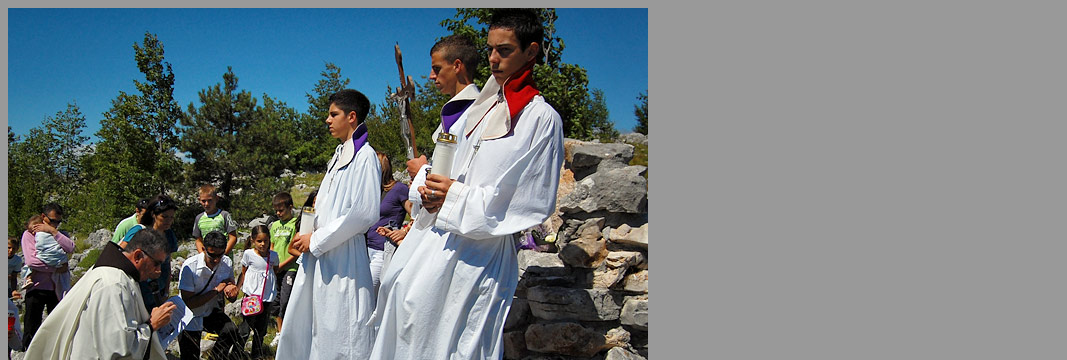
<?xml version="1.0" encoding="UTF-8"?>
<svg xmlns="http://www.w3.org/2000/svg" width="1067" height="360">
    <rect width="100%" height="100%" fill="#999999"/>
    <image x="8" y="8" width="640" height="352" href="img_01.png"/>
</svg>
